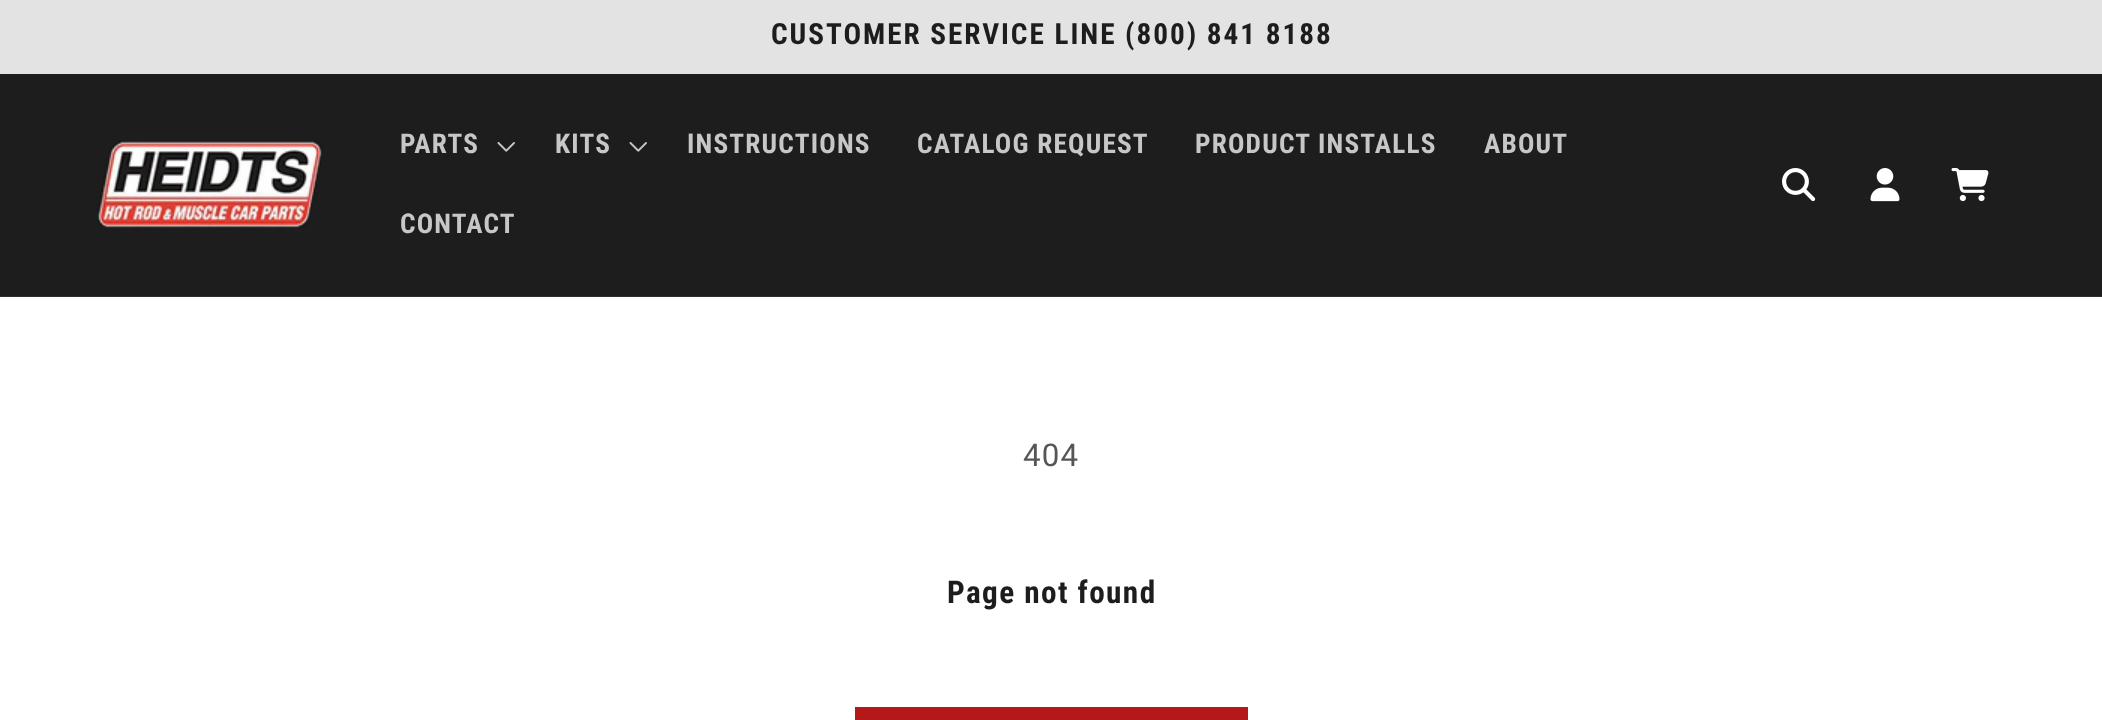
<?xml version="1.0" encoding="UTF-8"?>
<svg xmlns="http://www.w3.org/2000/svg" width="2102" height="720">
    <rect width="100%" height="100%" fill="#FFFFFF"/>
    <rect x="0" y="0" width="2102" height="74" fill="#E3E3E3"/>
    <text x="771" y="44" font-family="Roboto Condensed" font-size="29.25" font-weight="700" letter-spacing="1.95" fill="#1D1D1D">CUSTOMER SERVICE LINE (800) 841 8188</text>
    <rect x="0" y="74" width="2102" height="222" fill="#1D1D1D"/>
    <rect x="0" y="296" width="2102" height="1" fill="#2F2F2F"/>
    <image x="97" y="141" width="226" height="87" href="img_01.png"/>
    <text x="400" y="153" font-family="Roboto Condensed" font-size="27.25" font-weight="700" letter-spacing="1.2" fill="#C7C7C7">PARTS</text>
    <image x="497" y="142" width="18" height="10" href="img_02.png"/>
    <text x="555" y="153" font-family="Roboto Condensed" font-size="27.25" font-weight="700" letter-spacing="1.2" fill="#C7C7C7">KITS</text>
    <image x="629" y="142" width="18" height="10" href="img_02.png"/>
    <text x="687" y="153" font-family="Roboto Condensed" font-size="27.25" font-weight="700" letter-spacing="1.2" fill="#C7C7C7">INSTRUCTIONS</text>
    <text x="917" y="153" font-family="Roboto Condensed" font-size="27.25" font-weight="700" letter-spacing="1.2" fill="#C7C7C7">CATALOG REQUEST</text>
    <text x="1195" y="153" font-family="Roboto Condensed" font-size="27.25" font-weight="700" letter-spacing="1.2" fill="#C7C7C7">PRODUCT INSTALLS</text>
    <text x="1484" y="153" font-family="Roboto Condensed" font-size="27.25" font-weight="700" letter-spacing="1.2" fill="#C7C7C7">ABOUT</text>
    <text x="400" y="233" font-family="Roboto Condensed" font-size="27.25" font-weight="700" letter-spacing="1.2" fill="#C7C7C7">CONTACT</text>
    <image x="1782" y="168" width="34" height="34" href="img_03.png"/>
    <image x="1870" y="168" width="30" height="34" href="img_04.png"/>
    <image x="1951" y="168" width="38" height="34" href="img_05.png"/>
    <text x="1023" y="466" font-family="Roboto" font-size="31.25" letter-spacing="1.2" fill="#565656">404</text>
    <text x="947" y="603" font-family="Roboto Condensed" font-size="31.25" font-weight="700" letter-spacing="1.4" fill="#1D1D1D">Page not found</text>
    <rect x="855" y="707" width="393" height="13" fill="#B41818"/>
</svg>
